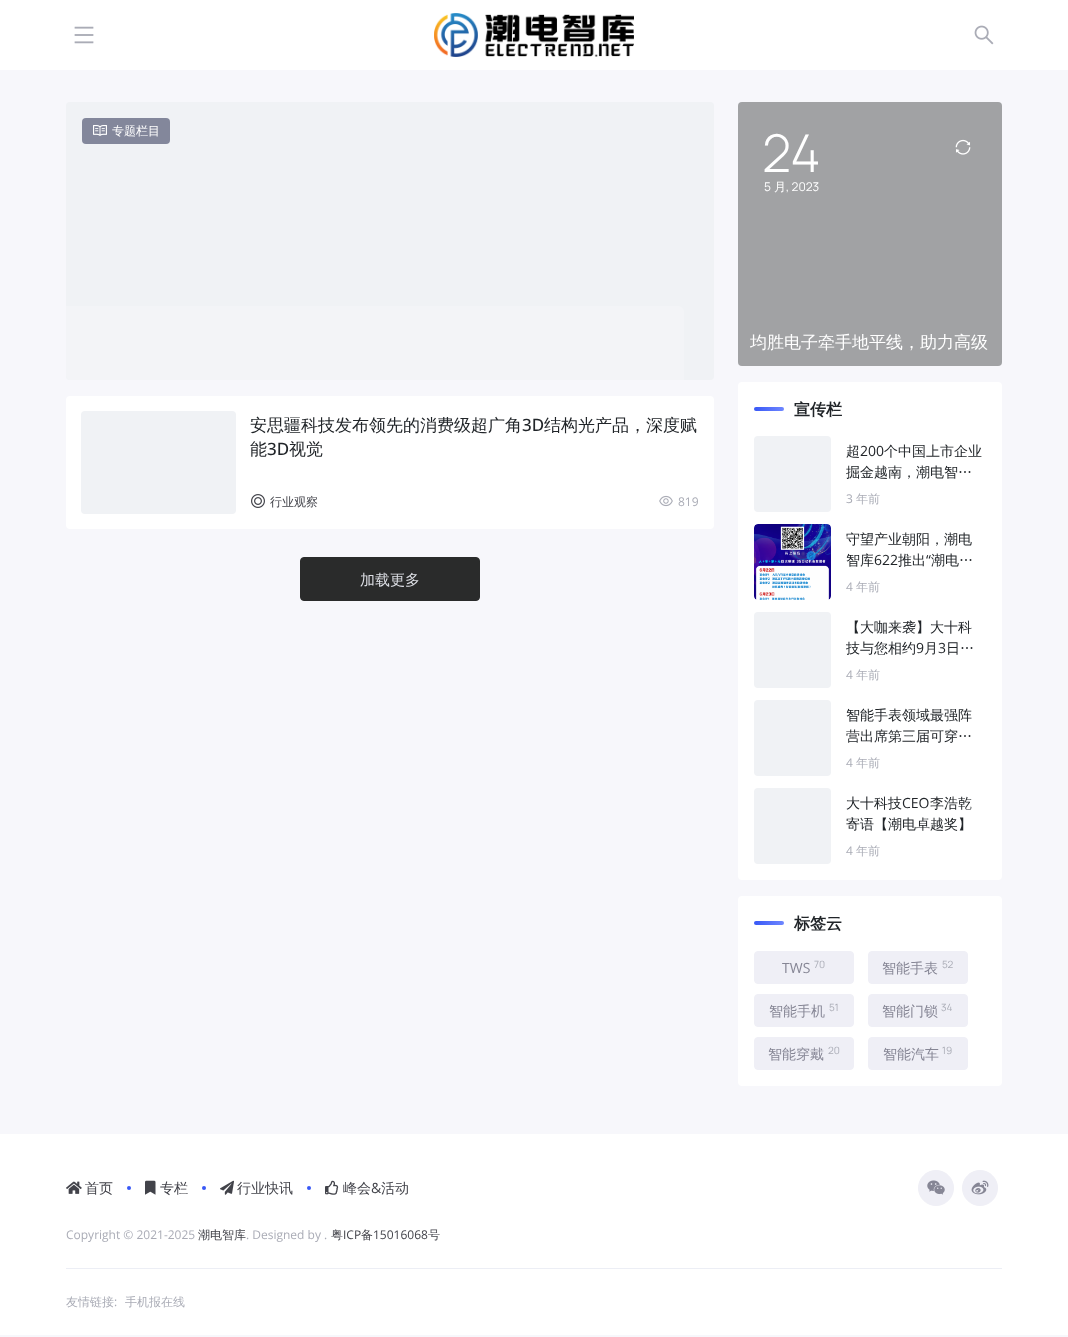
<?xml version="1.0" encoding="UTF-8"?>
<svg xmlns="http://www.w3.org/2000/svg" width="1068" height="1337">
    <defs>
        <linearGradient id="g1" gradientUnits="userSpaceOnUse" x1="754" y1="409" x2="844" y2="409"><stop offset="0" stop-color="#3858F6"/><stop offset="0.33" stop-color="#6E86FF"/><stop offset="0.67" stop-color="#8068FF"/><stop offset="1" stop-color="#3858F6"/></linearGradient>
        <linearGradient id="g2" gradientUnits="userSpaceOnUse" x1="754" y1="923" x2="844" y2="923"><stop offset="0" stop-color="#3858F6"/><stop offset="0.33" stop-color="#6E86FF"/><stop offset="0.67" stop-color="#8068FF"/><stop offset="1" stop-color="#3858F6"/></linearGradient>
    </defs>
    <rect width="100%" height="100%" fill="#F7F7FB"/>
    <rect x="0" y="0" width="1068" height="70" fill="#FFFFFF"/>
    <image x="74" y="26" width="20" height="18" href="img_01.png"/>
    <image x="434" y="13" width="200" height="44" href="img_02.png"/>
    <image x="974" y="25" width="20" height="20" href="img_03.png"/>
    <rect x="66" y="102" width="648" height="278" rx="4" fill="#F0F2F5"/>
    <rect x="82" y="118" width="88" height="26" rx="4" fill="#83879B"/>
    <image x="93" y="125" width="14" height="11" href="img_04.png"/>
    <text x="112" y="135" font-family="WenQuanYi Zen Hei" font-size="12" font-weight="500" fill="#FFFFFF">专题栏目</text>
    <path d="M 66 306 H 678 C 681.5 306 684 308.5 684 312 V 380 H 70 C 68 380 66 378 66 376 Z" fill="#FFFFFF" fill-opacity="0.2"/>
    <rect x="66" y="396" width="648" height="133" rx="4" fill="#FFFFFF"/>
    <rect x="81" y="411" width="155" height="103" rx="4" fill="#F0F2F5"/>
    <text x="250" y="431" font-family="WenQuanYi Zen Hei" font-size="17" font-weight="500" fill="#212529">安思疆科技发布领先的消费级超广角</text>
    <text x="522" y="431" font-family="Open Sans" font-size="17" font-weight="500" fill="#212529">3D</text>
    <text x="544" y="431" font-family="WenQuanYi Zen Hei" font-size="17" font-weight="500" fill="#212529">结构光产品，深度赋</text>
    <text x="250" y="455" font-family="WenQuanYi Zen Hei" font-size="17" font-weight="500" fill="#212529">能</text>
    <text x="267" y="455" font-family="Open Sans" font-size="17" font-weight="500" fill="#212529">3D</text>
    <text x="289" y="455" font-family="WenQuanYi Zen Hei" font-size="17" font-weight="500" fill="#212529">视觉</text>
    <image x="251" y="494" width="14" height="14" href="img_05.png"/>
    <text x="270" y="506" font-family="WenQuanYi Zen Hei" font-size="12" font-weight="500" fill="#42434A">行业观察</text>
    <image x="659" y="495" width="14" height="12" href="img_06.png"/>
    <text x="678" y="506" font-family="Open Sans" font-size="12" fill="#AAACB6">819</text>
    <rect x="300.5" y="557.5" width="179" height="43" rx="3.5" fill="#2A2B2B" stroke="#2A2B2B"/>
    <text x="360" y="585" font-family="WenQuanYi Zen Hei" font-size="15" font-weight="500" fill="#DCDEE4">加载更多</text>
    <rect x="738" y="102" width="264" height="264" rx="4" fill="#F0F2F5"/>
    <rect x="738" y="102" width="264" height="264" rx="4" fill="#2A2B2B" fill-opacity="0.4"/>
    <text x="762" y="172" font-family="Manrope" font-size="52" font-weight="300" fill="#FFFFFF">24</text>
    <text x="764" y="191" font-family="Manrope" font-size="12" fill="#FFFFFF">5</text>
    <text x="774" y="191" font-family="WenQuanYi Zen Hei" font-size="12" font-weight="500" fill="#FFFFFF">月</text>
    <text x="786" y="191" font-family="Manrope" font-size="12" fill="#FFFFFF">, 2023</text>
    <image x="955" y="139" width="16" height="16" href="img_07.png"/>
    <text x="750" y="348" font-family="WenQuanYi Zen Hei" font-size="17" font-weight="500" fill="#FFFFFF">均胜电子牵手地平线，助力高级</text>
    <rect x="738" y="382" width="264" height="498" rx="4" fill="#FFFFFF"/>
    <rect x="754" y="407" width="30" height="4" rx="2" fill="url(#g1)"/>
    <text x="794" y="415" font-family="WenQuanYi Zen Hei" font-size="16" font-weight="700" fill="#212529">宣传栏</text>
    <rect x="754" y="436" width="77" height="76" rx="4" fill="#F0F2F5"/>
    <text x="846" y="456" font-family="WenQuanYi Zen Hei" font-size="14" font-weight="500" fill="#212529">超</text>
    <text x="860" y="456" font-family="Open Sans" font-size="14" fill="#212529">200</text>
    <text x="884" y="456" font-family="WenQuanYi Zen Hei" font-size="14" font-weight="500" fill="#212529">个中国上市企业</text>
    <text x="846" y="477" font-family="WenQuanYi Zen Hei" font-size="14" font-weight="500" fill="#212529">掘金越南，潮电智…</text>
    <text x="846" y="503" font-family="Open Sans" font-size="12" fill="#AAACB6">3</text>
    <text x="856" y="503" font-family="WenQuanYi Zen Hei" font-size="12" font-weight="500" fill="#AAACB6">年前</text>
    <image x="754" y="524" width="77" height="76" href="img_08.png"/>
    <text font-family="WenQuanYi Zen Hei" font-size="14" font-weight="500" fill="#212529">
        <tspan x="846" y="544">守望产业朝阳，潮电</tspan>
        <tspan x="846" y="565">智库</tspan>
    </text>
    <text x="874" y="565" font-family="Open Sans" font-size="14" fill="#212529">622</text>
    <text x="898" y="565" font-family="WenQuanYi Zen Hei" font-size="14" font-weight="500" fill="#212529">推出</text>
    <text x="926" y="565" font-family="Open Sans" font-size="14" fill="#212529">“</text>
    <text x="931" y="565" font-family="WenQuanYi Zen Hei" font-size="14" font-weight="500" fill="#212529">潮电…</text>
    <text x="846" y="591" font-family="Open Sans" font-size="12" fill="#AAACB6">4</text>
    <text x="856" y="591" font-family="WenQuanYi Zen Hei" font-size="12" font-weight="500" fill="#AAACB6">年前</text>
    <rect x="754" y="612" width="77" height="76" rx="4" fill="#F0F2F5"/>
    <text font-family="WenQuanYi Zen Hei" font-size="14" font-weight="500" fill="#212529">
        <tspan x="846" y="632">【大咖来袭】大十科</tspan>
        <tspan x="846" y="653">技与您相约</tspan>
    </text>
    <text x="916" y="653" font-family="Open Sans" font-size="14" fill="#212529">9</text>
    <text x="924" y="653" font-family="WenQuanYi Zen Hei" font-size="14" font-weight="500" fill="#212529">月</text>
    <text x="938" y="653" font-family="Open Sans" font-size="14" fill="#212529">3</text>
    <text x="946" y="653" font-family="WenQuanYi Zen Hei" font-size="14" font-weight="500" fill="#212529">日…</text>
    <text x="846" y="679" font-family="Open Sans" font-size="12" fill="#AAACB6">4</text>
    <text x="856" y="679" font-family="WenQuanYi Zen Hei" font-size="12" font-weight="500" fill="#AAACB6">年前</text>
    <rect x="754" y="700" width="77" height="76" rx="4" fill="#F0F2F5"/>
    <text font-family="WenQuanYi Zen Hei" font-size="14" font-weight="500" fill="#212529">
        <tspan x="846" y="720">智能手表领域最强阵</tspan>
        <tspan x="846" y="741">营出席第三届可穿…</tspan>
    </text>
    <text x="846" y="767" font-family="Open Sans" font-size="12" fill="#AAACB6">4</text>
    <text x="856" y="767" font-family="WenQuanYi Zen Hei" font-size="12" font-weight="500" fill="#AAACB6">年前</text>
    <rect x="754" y="788" width="77" height="76" rx="4" fill="#F0F2F5"/>
    <text x="846" y="808" font-family="WenQuanYi Zen Hei" font-size="14" font-weight="500" fill="#212529">大十科技</text>
    <text x="902" y="808" font-family="Open Sans" font-size="14" fill="#212529">CEO</text>
    <text x="930" y="808" font-family="WenQuanYi Zen Hei" font-size="14" font-weight="500" fill="#212529">李浩乾</text>
    <text x="846" y="829" font-family="WenQuanYi Zen Hei" font-size="14" font-weight="500" fill="#212529">寄语【潮电卓越奖】</text>
    <text x="846" y="855" font-family="Open Sans" font-size="12" fill="#AAACB6">4</text>
    <text x="856" y="855" font-family="WenQuanYi Zen Hei" font-size="12" font-weight="500" fill="#AAACB6">年前</text>
    <rect x="738" y="896" width="264" height="190" rx="4" fill="#FFFFFF"/>
    <rect x="754" y="921" width="30" height="4" rx="2" fill="url(#g2)"/>
    <text x="794" y="929" font-family="WenQuanYi Zen Hei" font-size="16" font-weight="700" fill="#212529">标签云</text>
    <rect x="754.5" y="951.5" width="99" height="32" rx="3.5" fill="#EFEFF6" stroke="#EFEFF6"/>
    <text x="782" y="973" font-family="Open Sans" font-size="14" fill="#868695">TWS</text>
    <text x="814" y="968" font-family="Manrope" font-size="10" fill="#AAACB6">70</text>
    <rect x="868.5" y="951.5" width="99" height="32" rx="3.5" fill="#EFEFF6" stroke="#EFEFF6"/>
    <text x="882" y="973" font-family="WenQuanYi Zen Hei" font-size="14" font-weight="500" fill="#868695">智能手表</text>
    <text x="942" y="968" font-family="Manrope" font-size="10" fill="#AAACB6">52</text>
    <rect x="754.5" y="994.5" width="99" height="32" rx="3.5" fill="#EFEFF6" stroke="#EFEFF6"/>
    <text x="769" y="1016" font-family="WenQuanYi Zen Hei" font-size="14" font-weight="500" fill="#868695">智能手机</text>
    <text x="829" y="1011" font-family="Manrope" font-size="10" fill="#AAACB6">51</text>
    <rect x="868.5" y="994.5" width="99" height="32" rx="3.5" fill="#EFEFF6" stroke="#EFEFF6"/>
    <text x="882" y="1016" font-family="WenQuanYi Zen Hei" font-size="14" font-weight="500" fill="#868695">智能门锁</text>
    <text x="941" y="1011" font-family="Manrope" font-size="10" fill="#AAACB6">34</text>
    <rect x="754.5" y="1037.5" width="99" height="32" rx="3.5" fill="#EFEFF6" stroke="#EFEFF6"/>
    <text x="768" y="1059" font-family="WenQuanYi Zen Hei" font-size="14" font-weight="500" fill="#868695">智能穿戴</text>
    <text x="828" y="1054" font-family="Manrope" font-size="10" fill="#AAACB6">20</text>
    <rect x="868.5" y="1037.5" width="99" height="32" rx="3.5" fill="#EFEFF6" stroke="#EFEFF6"/>
    <text x="883" y="1059" font-family="WenQuanYi Zen Hei" font-size="14" font-weight="500" fill="#868695">智能汽车</text>
    <text x="942" y="1054" font-family="Manrope" font-size="10" fill="#AAACB6">19</text>
    <rect x="0" y="1134" width="1068" height="201" fill="#FFFFFF"/>
    <image x="66" y="1181" width="16" height="13" href="img_09.png"/>
    <text x="85" y="1193" font-family="WenQuanYi Zen Hei" font-size="14" font-weight="500" fill="#42434A">首页</text>
    <circle cx="129" cy="1188" r="2" fill="#3858F6"/>
    <image x="145" y="1180" width="11" height="15" href="img_10.png"/>
    <text x="160" y="1193" font-family="WenQuanYi Zen Hei" font-size="14" font-weight="500" fill="#42434A">专栏</text>
    <circle cx="204" cy="1188" r="2" fill="#3858F6"/>
    <image x="220" y="1180" width="14" height="15" href="img_11.png"/>
    <text x="237" y="1193" font-family="WenQuanYi Zen Hei" font-size="14" font-weight="500" fill="#42434A">行业快讯</text>
    <circle cx="309" cy="1188" r="2" fill="#3858F6"/>
    <image x="325" y="1180" width="14" height="15" href="img_12.png"/>
    <text x="343" y="1193" font-family="WenQuanYi Zen Hei" font-size="14" font-weight="500" fill="#42434A">峰会</text>
    <text x="371" y="1193" font-family="Open Sans" font-size="14" fill="#42434A">&amp;</text>
    <text x="381" y="1193" font-family="WenQuanYi Zen Hei" font-size="14" font-weight="500" fill="#42434A">活动</text>
    <circle cx="936" cy="1188" r="17.5" fill="#EFEFF6" stroke="#EFEFF6"/>
    <image x="927" y="1180" width="18" height="15" href="img_13.png"/>
    <circle cx="980" cy="1188" r="17.5" fill="#EFEFF6" stroke="#EFEFF6"/>
    <image x="971" y="1180" width="18" height="15" href="img_14.png"/>
    <text x="66" y="1239" font-family="Open Sans" font-size="12" fill="#AAACB6">Copyright © 2021-2025</text>
    <text x="198" y="1239" font-family="WenQuanYi Zen Hei" font-size="12" font-weight="500" fill="#42434A">潮电智库</text>
    <text x="246" y="1239" font-family="Open Sans" font-size="12" fill="#AAACB6">. Designed by .</text>
    <text x="331" y="1239" font-family="WenQuanYi Zen Hei" font-size="12" font-weight="500" fill="#42434A">粤</text>
    <text x="343" y="1239" font-family="Open Sans" font-size="12" fill="#42434A">ICP</text>
    <text x="361" y="1239" font-family="WenQuanYi Zen Hei" font-size="12" font-weight="500" fill="#42434A">备</text>
    <text x="373" y="1239" font-family="Open Sans" font-size="12" fill="#42434A">15016068</text>
    <text x="428" y="1239" font-family="WenQuanYi Zen Hei" font-size="12" font-weight="500" fill="#42434A">号</text>
    <rect x="66" y="1268" width="936" height="1" fill="#ECEEF5"/>
    <text x="66" y="1306" font-family="WenQuanYi Zen Hei" font-size="12" font-weight="500" fill="#AAACB6">友情链接</text>
    <text x="114" y="1306" font-family="Open Sans" font-size="12" fill="#AAACB6">:</text>
    <text x="125" y="1306" font-family="WenQuanYi Zen Hei" font-size="12" font-weight="500" fill="#AAACB6">手机报在线</text>
</svg>
